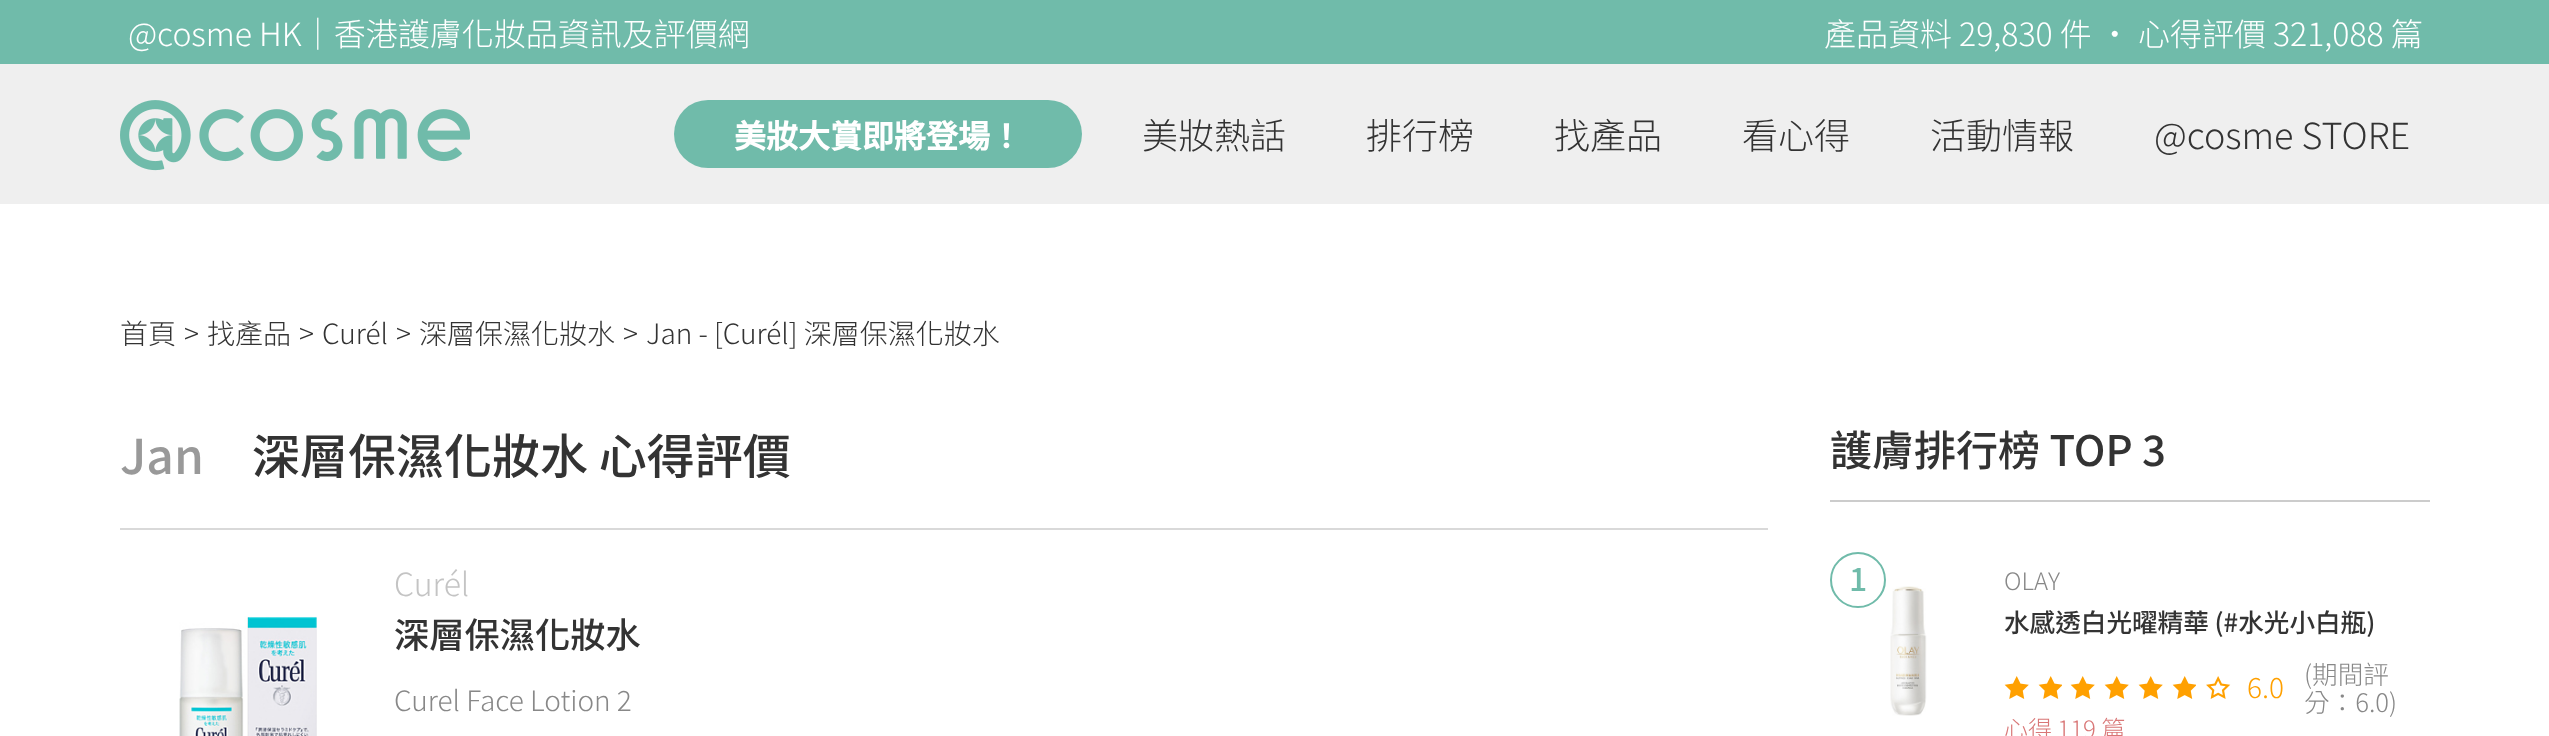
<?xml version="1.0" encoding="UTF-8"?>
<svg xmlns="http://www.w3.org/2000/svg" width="2549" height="736">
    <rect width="100%" height="100%" fill="#FFFFFF"/>
    <rect x="0" y="0" width="2549" height="64" fill="#70BBAA"/>
    <text x="128" y="46" font-family="Noto Sans TC" font-size="32" font-weight="300" fill="#FFFFFF">@cosme HK｜香港護膚化妝品資訊及評價網</text>
    <text x="1824" y="46" font-family="Noto Sans TC" font-size="32" font-weight="300" fill="#FFFFFF">產品資料 29,830 件 · 心得評價 321,088 篇</text>
    <rect x="0" y="64" width="2549" height="140" fill="#EFEFEF"/>
    <image x="120" y="100" width="350" height="71" href="img_01.png"/>
    <rect x="674" y="100" width="408" height="68" rx="34" fill="#70BBAA"/>
    <text x="734" y="148" font-family="Noto Sans TC" font-size="32" font-weight="700" fill="#FFFFFF">美妝大賞即將登場！</text>
    <text x="1142" y="149" font-family="Noto Sans TC" font-size="36" font-weight="300" fill="#333333">美妝熱話</text>
    <text x="1366" y="149" font-family="Noto Sans TC" font-size="36" font-weight="300" fill="#333333">排行榜</text>
    <text x="1554" y="149" font-family="Noto Sans TC" font-size="36" font-weight="300" fill="#333333">找產品</text>
    <text x="1742" y="149" font-family="Noto Sans TC" font-size="36" font-weight="300" fill="#333333">看心得</text>
    <text x="1930" y="149" font-family="Noto Sans TC" font-size="36" font-weight="300" fill="#333333">活動情報</text>
    <text x="2154" y="149" font-family="Noto Sans TC" font-size="36" font-weight="300" fill="#333333">@cosme STORE</text>
    <text x="120" y="344" font-family="Noto Sans TC" font-size="28" font-weight="300" fill="#333333">首頁</text>
    <text x="184" y="344" font-family="Noto Sans TC" font-size="28" font-weight="300" fill="#333333">&gt;</text>
    <text x="207" y="344" font-family="Noto Sans TC" font-size="28" font-weight="300" fill="#333333">找產品</text>
    <text x="299" y="344" font-family="Noto Sans TC" font-size="28" font-weight="300" fill="#333333">&gt;</text>
    <text x="322" y="344" font-family="Noto Sans TC" font-size="28" font-weight="300" fill="#333333">Curél</text>
    <text x="396" y="344" font-family="Noto Sans TC" font-size="28" font-weight="300" fill="#333333">&gt;</text>
    <text x="419" y="344" font-family="Noto Sans TC" font-size="28" font-weight="300" fill="#333333">深層保濕化妝水</text>
    <text x="623" y="344" font-family="Noto Sans TC" font-size="28" font-weight="300" fill="#333333">&gt;</text>
    <text x="646" y="344" font-family="Noto Sans TC" font-size="28" font-weight="300" fill="#333333">Jan - [Curél] 深層保濕化妝水</text>
    <text x="120" y="474" font-family="Noto Sans TC" font-size="48" font-weight="500" fill="#999999">Jan</text>
    <text x="252" y="474" font-family="Noto Sans TC" font-size="48" font-weight="500" fill="#333333">深層保濕化妝水 心得評價</text>
    <rect x="120" y="528" width="1648" height="2" fill="#D9D9D9"/>
    <image x="179" y="616" width="138" height="120" href="img_02.png"/>
    <text x="394" y="596" font-family="Noto Sans TC" font-size="32" font-weight="300" fill="#C4C4C4">Curél</text>
    <text x="394" y="648" font-family="Noto Sans TC" font-size="35.25" font-weight="500" fill="#333333">深層保濕化妝水</text>
    <text x="394" y="711" font-family="Noto Sans TC" font-size="28" font-weight="300" fill="#888888">Curel Face Lotion 2</text>
    <rect x="1830" y="500" width="600" height="2" fill="#CCCCCC"/>
    <text x="1830" y="466" font-family="Noto Sans TC" font-size="42" font-weight="500" fill="#333333">護膚排行榜 TOP 3</text>
    <circle cx="1858" cy="580" r="27" fill="none" stroke="#70BBAA" stroke-width="2"/>
    <text x="1849" y="591" font-family="Noto Sans TC" font-size="32" font-weight="500" fill="#70BBAA">1</text>
    <image x="1890" y="586" width="37" height="130" href="img_03.png"/>
    <text x="2004" y="590" font-family="Noto Sans TC" font-size="24" font-weight="300" fill="#888888">OLAY</text>
    <text x="2004" y="632" font-family="Noto Sans TC" font-size="25.6" font-weight="500" fill="#333333">水感透白光曜精華 (#水光小白瓶)</text>
    <image x="2004" y="676" width="25" height="23" href="img_04.png"/>
    <image x="2038" y="676" width="24" height="23" href="img_05.png"/>
    <image x="2070" y="676" width="25" height="23" href="img_04.png"/>
    <image x="2104" y="676" width="25" height="23" href="img_04.png"/>
    <image x="2138" y="676" width="25" height="23" href="img_04.png"/>
    <image x="2172" y="676" width="24" height="23" href="img_05.png"/>
    <image x="2206" y="676" width="25" height="23" href="img_06.png"/>
    <text x="2247" y="698" font-family="Noto Sans TC" font-size="28" font-weight="300" fill="#FFA000">6.0</text>
    <text font-family="Noto Sans TC" font-size="25.6" font-weight="300" fill="#888888">
        <tspan x="2304" y="684">(期間評</tspan>
        <tspan x="2304" y="712">分：6.0)</tspan>
    </text>
    <text x="2004" y="738" font-family="Noto Sans TC" font-size="24" font-weight="300" fill="#D97777">心得 119 篇</text>
</svg>
